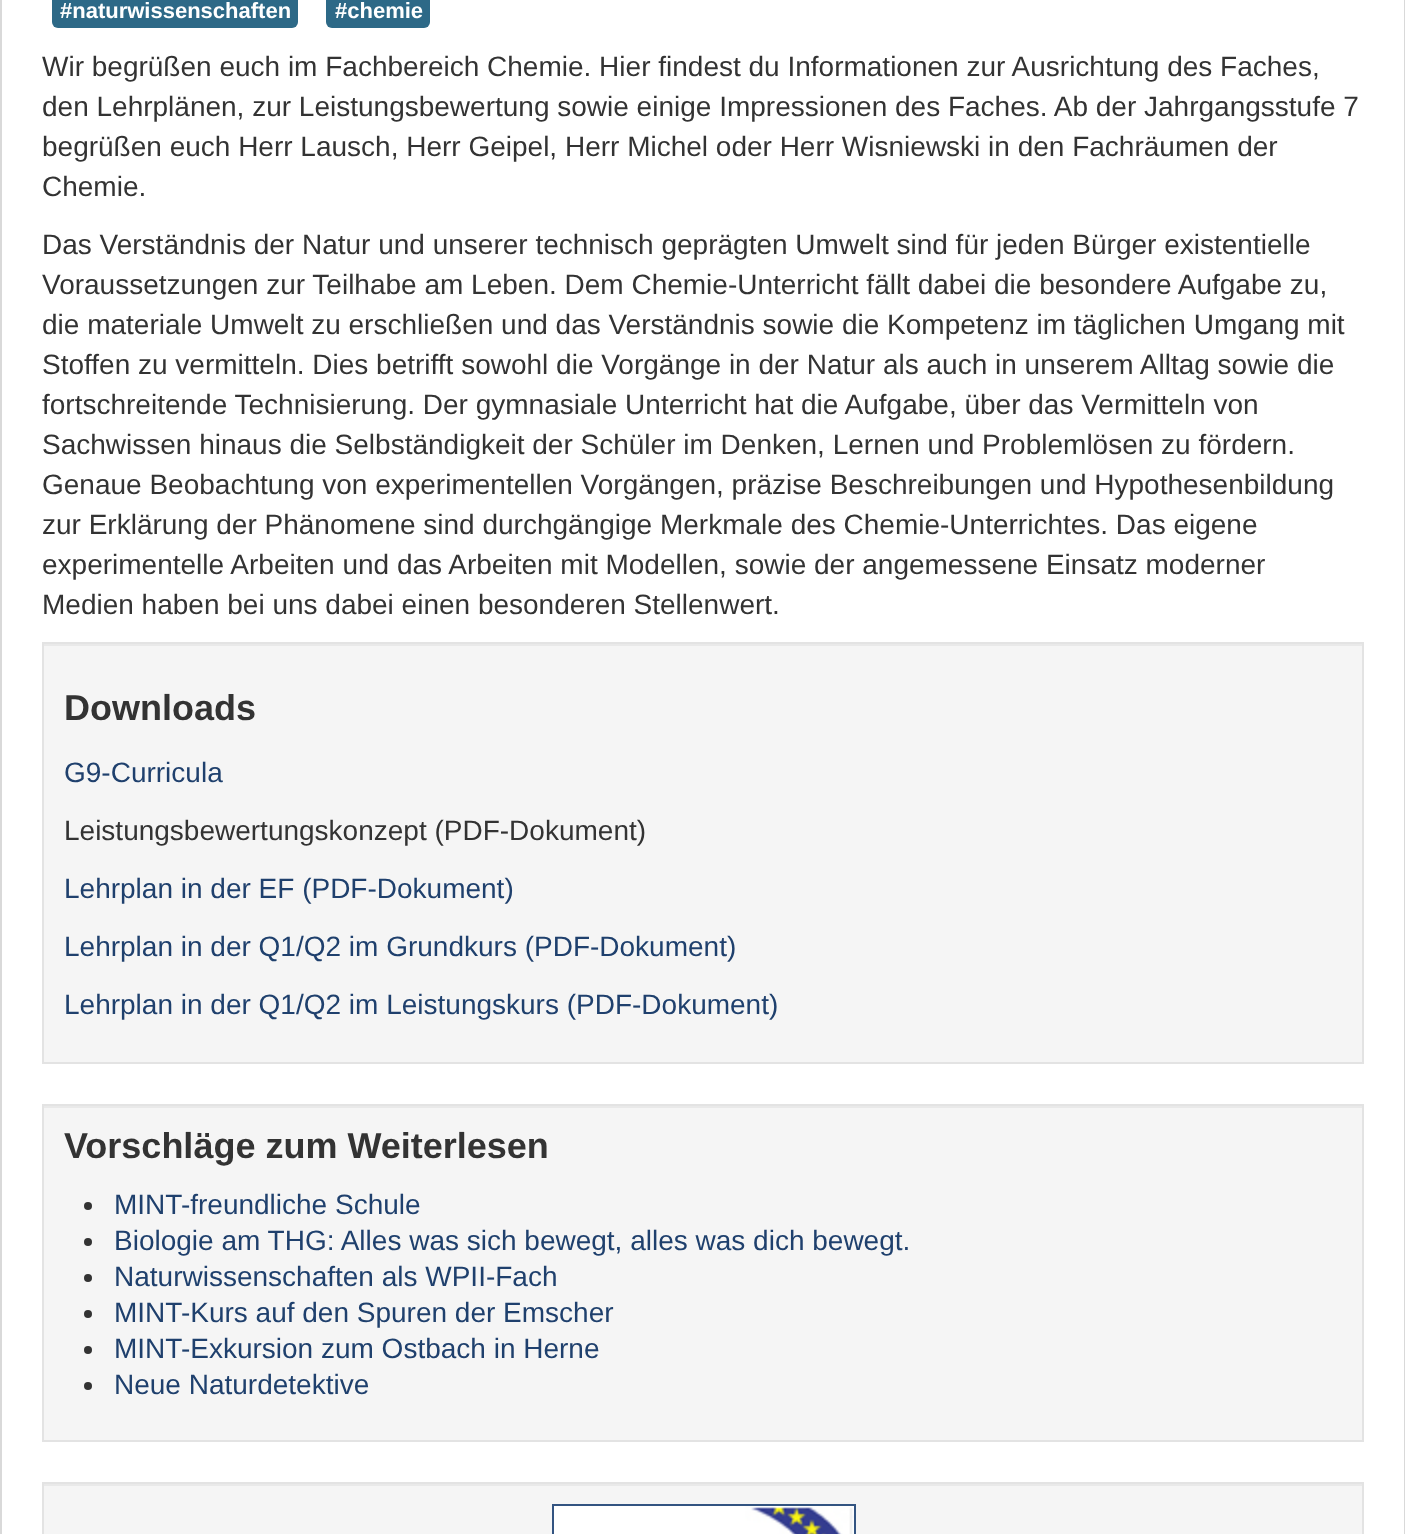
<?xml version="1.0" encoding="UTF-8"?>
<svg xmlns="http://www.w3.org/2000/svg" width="1405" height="1534">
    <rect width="100%" height="100%" fill="#FFFFFF"/>
    <rect x="1" y="-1" width="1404" height="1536" fill="none" stroke="#D9D9D9" stroke-width="2"/>
    <rect x="52" y="-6" width="246" height="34" rx="6" fill="#2D6987"/>
    <text x="60" y="18" font-family="Liberation Sans" font-size="22" font-weight="700" fill="#FFFFFF">#naturwissenschaften</text>
    <rect x="326" y="-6" width="104" height="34" rx="6" fill="#2D6987"/>
    <text x="335" y="18" font-family="Liberation Sans" font-size="22" font-weight="700" fill="#FFFFFF">#chemie</text>
    <text font-family="Liberation Sans" font-size="28" fill="#333333">
        <tspan x="42" y="76">Wir begrüßen euch im Fachbereich Chemie. Hier findest du Informationen zur Ausrichtung des Faches,</tspan>
        <tspan x="42" y="116">den Lehrplänen, zur Leistungsbewertung sowie einige Impressionen des Faches. Ab der Jahrgangsstufe 7</tspan>
        <tspan x="42" y="156">begrüßen euch Herr Lausch, Herr Geipel, Herr Michel oder Herr Wisniewski in den Fachräumen der</tspan>
        <tspan x="42" y="196">Chemie.</tspan>
    </text>
    <text font-family="Liberation Sans" font-size="28" fill="#333333">
        <tspan x="42" y="254">Das Verständnis der Natur und unserer technisch geprägten Umwelt sind für jeden Bürger existentielle</tspan>
        <tspan x="42" y="294">Voraussetzungen zur Teilhabe am Leben. Dem Chemie-Unterricht fällt dabei die besondere Aufgabe zu,</tspan>
        <tspan x="42" y="334">die materiale Umwelt zu erschließen und das Verständnis sowie die Kompetenz im täglichen Umgang mit</tspan>
        <tspan x="42" y="374">Stoffen zu vermitteln. Dies betrifft sowohl die Vorgänge in der Natur als auch in unserem Alltag sowie die</tspan>
        <tspan x="42" y="414">fortschreitende Technisierung. Der gymnasiale Unterricht hat die Aufgabe, über das Vermitteln von</tspan>
        <tspan x="42" y="454">Sachwissen hinaus die Selbständigkeit der Schüler im Denken, Lernen und Problemlösen zu fördern.</tspan>
        <tspan x="42" y="494">Genaue Beobachtung von experimentellen Vorgängen, präzise Beschreibungen und Hypothesenbildung</tspan>
        <tspan x="42" y="534">zur Erklärung der Phänomene sind durchgängige Merkmale des Chemie-Unterrichtes. Das eigene</tspan>
        <tspan x="42" y="574">experimentelle Arbeiten und das Arbeiten mit Modellen, sowie der angemessene Einsatz moderner</tspan>
        <tspan x="42" y="614">Medien haben bei uns dabei einen besonderen Stellenwert.</tspan>
    </text>
    <rect x="44" y="646" width="1318" height="416" fill="#F5F5F5"/>
    <rect x="44" y="644" width="1318" height="2" fill="#E9E9E9"/>
    <rect x="43" y="643" width="1320" height="420" fill="none" stroke="#E3E3E3" stroke-width="2"/>
    <text x="64" y="720" font-family="Liberation Sans" font-size="36" font-weight="700" fill="#333333">Downloads</text>
    <text x="64" y="782" font-family="Liberation Sans" font-size="28" fill="#1F406D">G9-Curricula</text>
    <text x="64" y="840" font-family="Liberation Sans" font-size="28" fill="#333333">Leistungsbewertungskonzept (PDF-Dokument)</text>
    <text x="64" y="898" font-family="Liberation Sans" font-size="28" fill="#1F406D">Lehrplan in der EF (PDF-Dokument)</text>
    <text x="64" y="956" font-family="Liberation Sans" font-size="28" fill="#1F406D">Lehrplan in der Q1/Q2 im Grundkurs (PDF-Dokument)</text>
    <text x="64" y="1014" font-family="Liberation Sans" font-size="28" fill="#1F406D">Lehrplan in der Q1/Q2 im Leistungskurs (PDF-Dokument)</text>
    <rect x="44" y="1108" width="1318" height="332" fill="#F5F5F5"/>
    <rect x="44" y="1106" width="1318" height="2" fill="#E9E9E9"/>
    <rect x="43" y="1105" width="1320" height="336" fill="none" stroke="#E3E3E3" stroke-width="2"/>
    <text x="64" y="1158" font-family="Liberation Sans" font-size="36" font-weight="700" fill="#333333">Vorschläge zum Weiterlesen</text>
    <circle cx="88" cy="1206" r="4" fill="#333333"/>
    <text x="114" y="1214" font-family="Liberation Sans" font-size="28" fill="#1F406D">MINT-freundliche Schule</text>
    <circle cx="88" cy="1242" r="4" fill="#333333"/>
    <text x="114" y="1250" font-family="Liberation Sans" font-size="28" fill="#1F406D">Biologie am THG: Alles was sich bewegt, alles was dich bewegt.</text>
    <circle cx="88" cy="1278" r="4" fill="#333333"/>
    <text x="114" y="1286" font-family="Liberation Sans" font-size="28" fill="#1F406D">Naturwissenschaften als WPII-Fach</text>
    <circle cx="88" cy="1314" r="4" fill="#333333"/>
    <text x="114" y="1322" font-family="Liberation Sans" font-size="28" fill="#1F406D">MINT-Kurs auf den Spuren der Emscher</text>
    <circle cx="88" cy="1350" r="4" fill="#333333"/>
    <text x="114" y="1358" font-family="Liberation Sans" font-size="28" fill="#1F406D">MINT-Exkursion zum Ostbach in Herne</text>
    <circle cx="88" cy="1386" r="4" fill="#333333"/>
    <text x="114" y="1394" font-family="Liberation Sans" font-size="28" fill="#1F406D">Neue Naturdetektive</text>
    <rect x="44" y="1486" width="1318" height="48" fill="#F5F5F5"/>
    <rect x="44" y="1484" width="1318" height="2" fill="#E9E9E9"/>
    <rect x="43" y="1483" width="1320" height="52" fill="none" stroke="#E3E3E3" stroke-width="2"/>
    <rect x="553" y="1505" width="302" height="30" fill="none" stroke="#335481" stroke-width="2"/>
    <image x="554" y="1506" width="300" height="28" href="img_01.png"/>
</svg>
